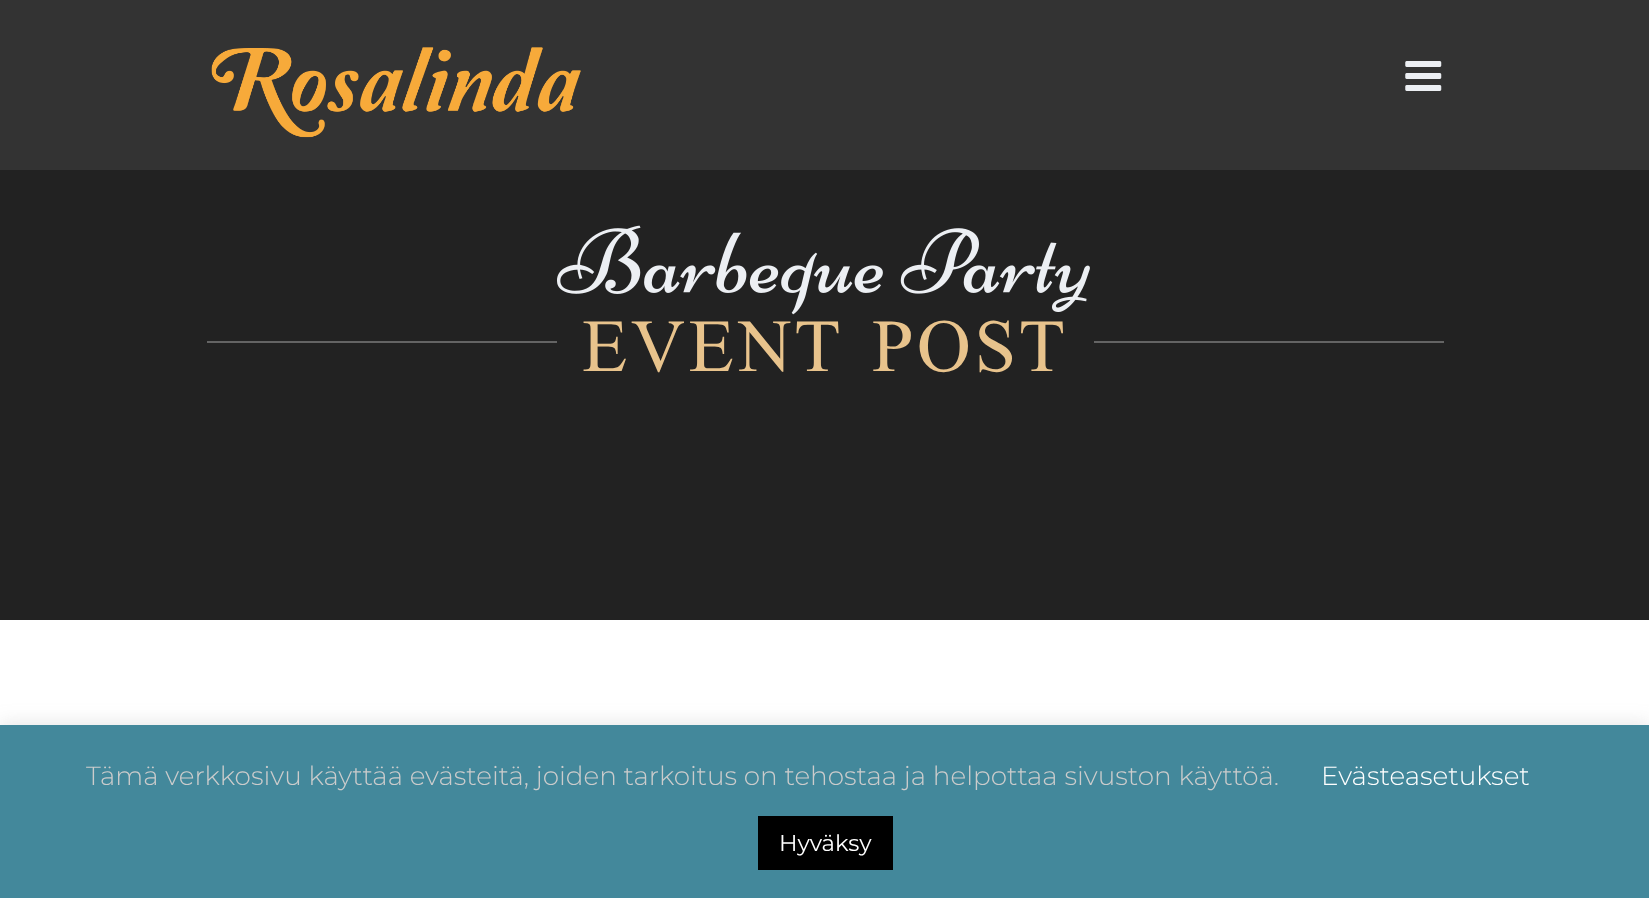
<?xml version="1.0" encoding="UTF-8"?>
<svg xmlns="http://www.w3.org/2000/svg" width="1649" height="898">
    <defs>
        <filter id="blur1" x="-50%" y="-200%" width="200%" height="500%"><feGaussianBlur stdDeviation="9"/></filter>
    </defs>
    <rect width="100%" height="100%" fill="#FFFFFF"/>
    <rect x="0" y="0" width="1649" height="170" fill="#333333"/>
    <image x="211" y="47" width="370" height="91" href="img_01.png"/>
    <image x="1405" y="61" width="37" height="30" href="img_02.png"/>
    <rect x="0" y="170" width="1649" height="450" fill="#222222"/>
    <image x="557" y="225" width="533" height="90" href="img_03.png"/>
    <rect x="207" y="341" width="350" height="2" fill="#646464"/>
    <text x="582" y="371" font-family="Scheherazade" font-size="99" letter-spacing="3.5" fill="#E8C38C">EVENT POST</text>
    <rect x="1094" y="341" width="350" height="2" fill="#646464"/>
    <rect x="0" y="723" width="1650" height="175" fill="#ACABAB" fill-opacity="0.3" filter="url(#blur1)"/>
    <rect x="0" y="725" width="1649" height="173" fill="#43889B"/>
    <text x="86" y="785" font-family="Montserrat" font-size="26.25" font-weight="300" fill="#CCCCCC">Tämä verkkosivu käyttää evästeitä, joiden tarkoitus on tehostaa ja helpottaa sivuston käyttöä.</text>
    <text x="1321" y="785" font-family="Montserrat" font-size="26.25" font-weight="300" fill="#FFFFFF">Evästeasetukset</text>
    <rect x="758" y="816" width="135" height="54" fill="#000000"/>
    <text x="779" y="851" font-family="Montserrat" font-size="22.75" fill="#FFFFFF">Hyväksy</text>
</svg>
